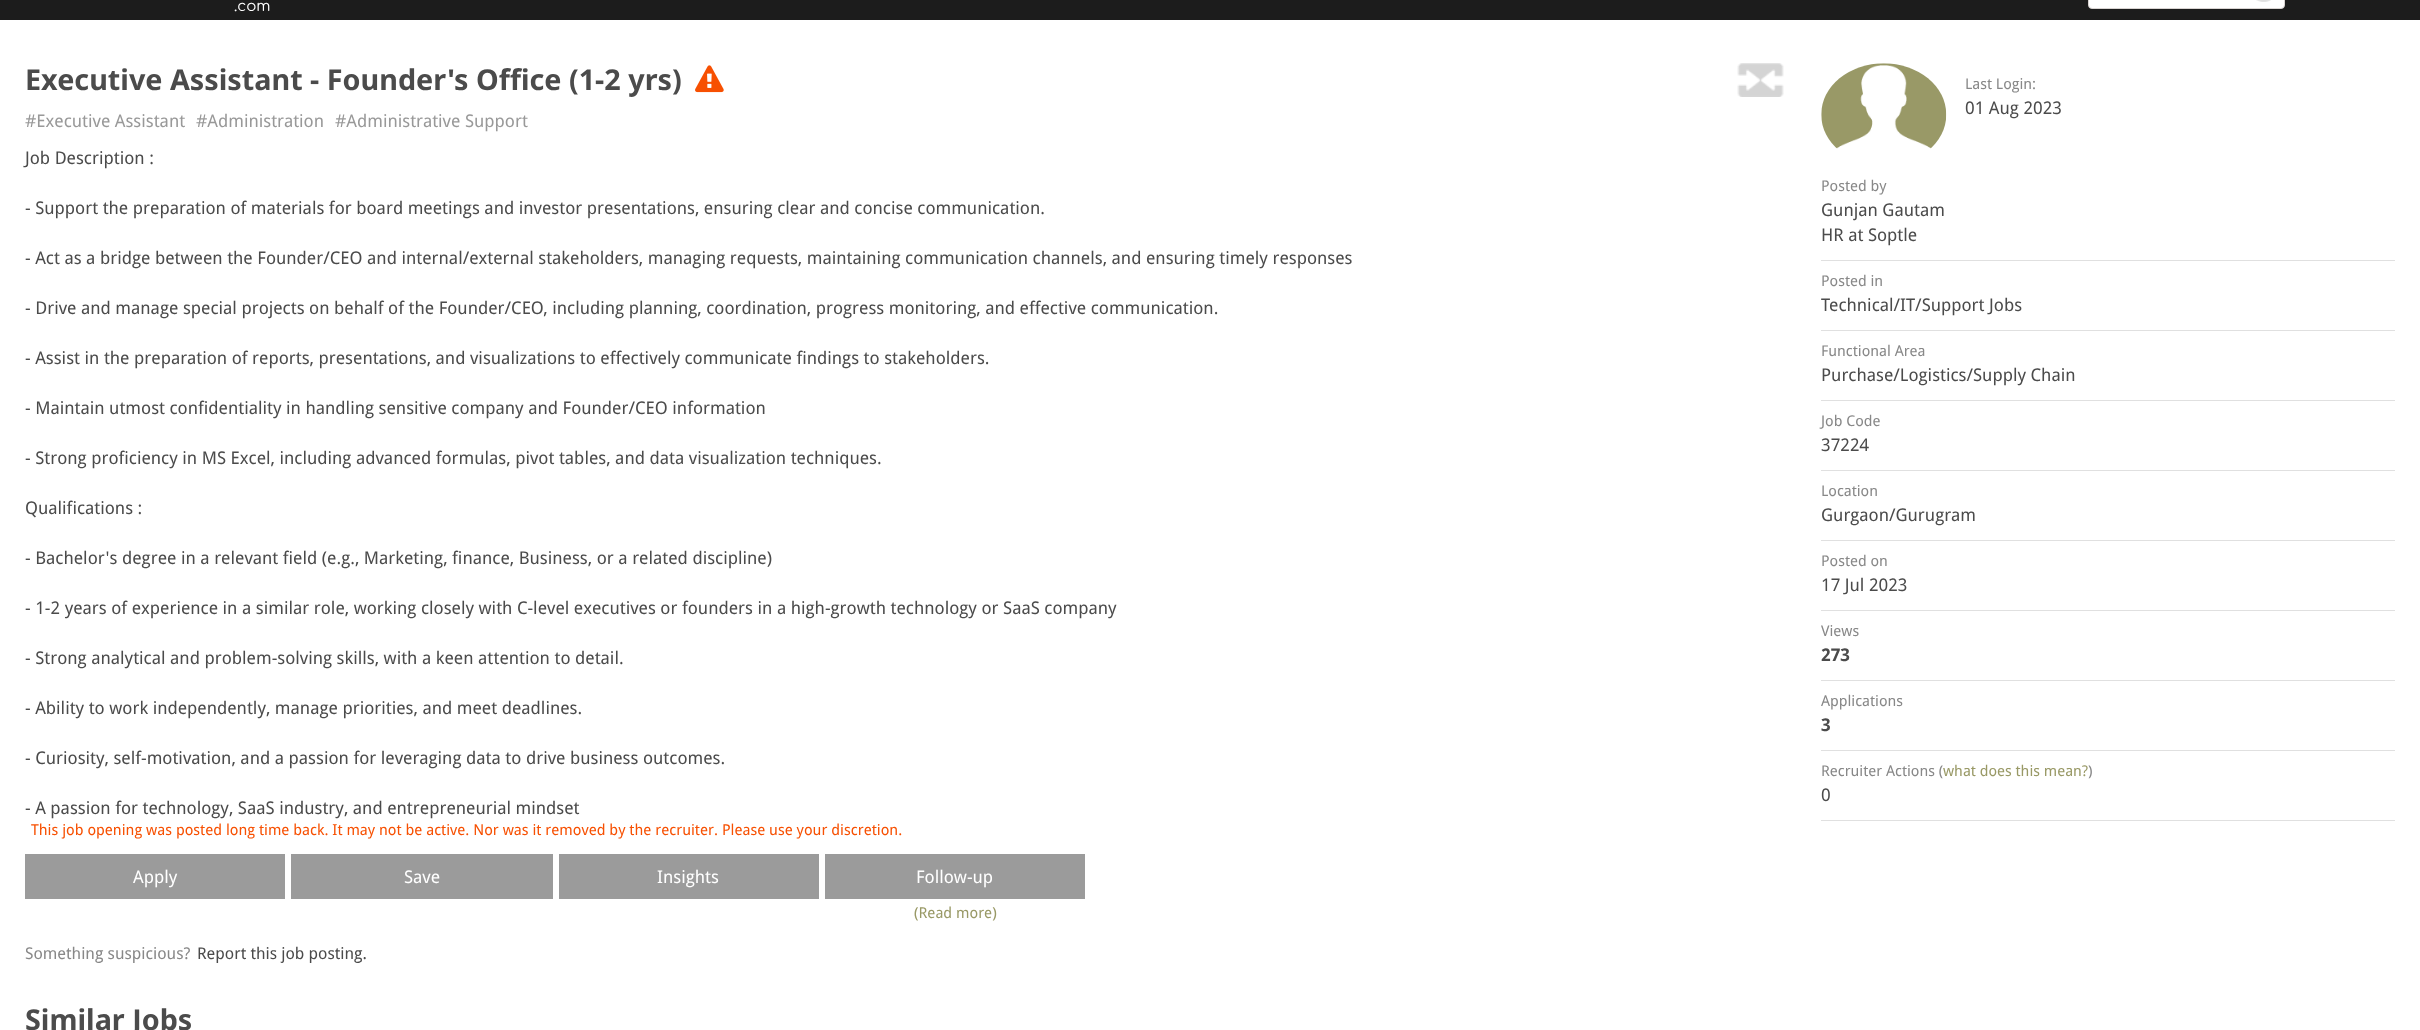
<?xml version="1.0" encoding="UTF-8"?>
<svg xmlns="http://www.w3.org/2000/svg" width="2420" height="1030">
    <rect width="100%" height="100%" fill="#FFFFFF"/>
    <rect x="0" y="0" width="2420" height="20" fill="#1C1C1C"/>
    <text x="234" y="11" font-family="Comfortaa" font-size="15" fill="#FFFFFF">.com</text>
    <rect x="2088.5" y="-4.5" width="196" height="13" rx="3.5" fill="#FFFFFF" stroke="#D8D3D1"/>
    <image x="2256" y="0" width="15" height="2" href="img_01.png"/>
    <text x="25" y="90" font-family="Noto Sans" font-size="28.75" font-weight="700" fill="#4B4B4B">Executive Assistant - Founder's Office (1-2 yrs)</text>
    <image x="695" y="65" width="29" height="28" href="img_02.png"/>
    <image x="1737" y="63" width="47" height="34" href="img_03.png"/>
    <text x="25" y="127" font-family="Droid Sans" font-size="17.5" fill="#999999">#Executive Assistant</text>
    <text x="196" y="127" font-family="Droid Sans" font-size="17.5" fill="#999999">#Administration</text>
    <text x="335" y="127" font-family="Droid Sans" font-size="17.5" fill="#999999">#Administrative Support</text>
    <text x="25" y="164" font-family="Droid Sans" font-size="17.5" fill="#4B4B4B">Job Description :</text>
    <text x="25" y="214" font-family="Droid Sans" font-size="17.5" fill="#4B4B4B">- Support the preparation of materials for board meetings and investor presentations, ensuring clear and concise communication.</text>
    <text x="25" y="264" font-family="Droid Sans" font-size="17.5" fill="#4B4B4B">- Act as a bridge between the Founder/CEO and internal/external stakeholders, managing requests, maintaining communication channels, and ensuring timely responses</text>
    <text x="25" y="314" font-family="Droid Sans" font-size="17.5" fill="#4B4B4B">- Drive and manage special projects on behalf of the Founder/CEO, including planning, coordination, progress monitoring, and effective communication.</text>
    <text x="25" y="364" font-family="Droid Sans" font-size="17.5" fill="#4B4B4B">- Assist in the preparation of reports, presentations, and visualizations to effectively communicate findings to stakeholders.</text>
    <text x="25" y="414" font-family="Droid Sans" font-size="17.5" fill="#4B4B4B">- Maintain utmost confidentiality in handling sensitive company and Founder/CEO information</text>
    <text x="25" y="464" font-family="Droid Sans" font-size="17.5" fill="#4B4B4B">- Strong proficiency in MS Excel, including advanced formulas, pivot tables, and data visualization techniques.</text>
    <text x="25" y="514" font-family="Droid Sans" font-size="17.5" fill="#4B4B4B">Qualifications :</text>
    <text x="25" y="564" font-family="Droid Sans" font-size="17.5" fill="#4B4B4B">- Bachelor's degree in a relevant field (e.g., Marketing, finance, Business, or a related discipline)</text>
    <text x="25" y="614" font-family="Droid Sans" font-size="17.5" fill="#4B4B4B">- 1-2 years of experience in a similar role, working closely with C-level executives or founders in a high-growth technology or SaaS company</text>
    <text x="25" y="664" font-family="Droid Sans" font-size="17.5" fill="#4B4B4B">- Strong analytical and problem-solving skills, with a keen attention to detail.</text>
    <text x="25" y="714" font-family="Droid Sans" font-size="17.5" fill="#4B4B4B">- Ability to work independently, manage priorities, and meet deadlines.</text>
    <text x="25" y="764" font-family="Droid Sans" font-size="17.5" fill="#4B4B4B">- Curiosity, self-motivation, and a passion for leveraging data to drive business outcomes.</text>
    <text x="25" y="814" font-family="Droid Sans" font-size="17.5" fill="#4B4B4B">- A passion for technology, SaaS industry, and entrepreneurial mindset</text>
    <text x="31" y="835" font-family="Droid Sans" font-size="15" fill="#F75002">This job opening was posted long time back. It may not be active. Nor was it removed by the recruiter. Please use your discretion.</text>
    <rect x="25" y="854" width="260" height="45" fill="#9B9B9B"/>
    <text x="133" y="883" font-family="Droid Sans" font-size="17.5" fill="#FFFFFF">Apply</text>
    <rect x="291" y="854" width="262" height="45" fill="#9B9B9B"/>
    <text x="404" y="883" font-family="Droid Sans" font-size="17.5" fill="#FFFFFF">Save</text>
    <rect x="559" y="854" width="260" height="45" fill="#9B9B9B"/>
    <text x="657" y="883" font-family="Droid Sans" font-size="17.5" fill="#FFFFFF">Insights</text>
    <rect x="825" y="854" width="260" height="45" fill="#9B9B9B"/>
    <text x="916" y="883" font-family="Droid Sans" font-size="17.5" fill="#FFFFFF">Follow-up</text>
    <text x="914" y="918" font-family="Droid Sans" font-size="15" fill="#999966">(Read more)</text>
    <text x="25" y="959" font-family="Droid Sans" font-size="16.25" fill="#888888">Something suspicious?</text>
    <text x="197" y="959" font-family="Droid Sans" font-size="16.25" fill="#4B4B4B">Report this job posting.</text>
    <text x="25" y="1030" font-family="Noto Sans" font-size="28.75" font-weight="700" fill="#4B4B4B">Similar Jobs</text>
    <image x="1821" y="63" width="126" height="86" href="img_04.png"/>
    <text x="1965" y="89" font-family="Droid Sans" font-size="14.9" fill="#888888">Last Login:</text>
    <text x="1965" y="114" font-family="Droid Sans" font-size="17.5" fill="#4B4B4B">01 Aug 2023</text>
    <rect x="1821" y="260" width="574" height="1" fill="#E0E0E0"/>
    <text x="1821" y="191" font-family="Droid Sans" font-size="14.9" fill="#888888">Posted by</text>
    <text font-family="Droid Sans" font-size="17.5" fill="#4B4B4B">
        <tspan x="1821" y="216">Gunjan Gautam</tspan>
        <tspan x="1821" y="241">HR at Soptle</tspan>
    </text>
    <rect x="1821" y="330" width="574" height="1" fill="#E0E0E0"/>
    <text x="1821" y="286" font-family="Droid Sans" font-size="14.9" fill="#888888">Posted in</text>
    <text x="1821" y="311" font-family="Droid Sans" font-size="17.5" fill="#4B4B4B">Technical/IT/Support Jobs</text>
    <rect x="1821" y="400" width="574" height="1" fill="#E0E0E0"/>
    <text x="1821" y="356" font-family="Droid Sans" font-size="14.9" fill="#888888">Functional Area</text>
    <text x="1821" y="381" font-family="Droid Sans" font-size="17.5" fill="#4B4B4B">Purchase/Logistics/Supply Chain</text>
    <rect x="1821" y="470" width="574" height="1" fill="#E0E0E0"/>
    <text x="1821" y="426" font-family="Droid Sans" font-size="14.9" fill="#888888">Job Code</text>
    <text x="1821" y="451" font-family="Droid Sans" font-size="17.5" fill="#4B4B4B">37224</text>
    <rect x="1821" y="540" width="574" height="1" fill="#E0E0E0"/>
    <text x="1821" y="496" font-family="Droid Sans" font-size="14.9" fill="#888888">Location</text>
    <text x="1821" y="521" font-family="Droid Sans" font-size="17.5" fill="#4B4B4B">Gurgaon/Gurugram</text>
    <rect x="1821" y="610" width="574" height="1" fill="#E0E0E0"/>
    <text x="1821" y="566" font-family="Droid Sans" font-size="14.9" fill="#888888">Posted on</text>
    <text x="1821" y="591" font-family="Droid Sans" font-size="17.5" fill="#4B4B4B">17 Jul 2023</text>
    <rect x="1821" y="680" width="574" height="1" fill="#E0E0E0"/>
    <text x="1821" y="636" font-family="Droid Sans" font-size="14.9" fill="#888888">Views</text>
    <text x="1821" y="661" font-family="Droid Sans" font-size="17.5" font-weight="700" fill="#4B4B4B">273</text>
    <rect x="1821" y="750" width="574" height="1" fill="#E0E0E0"/>
    <text x="1821" y="706" font-family="Droid Sans" font-size="14.9" fill="#888888">Applications</text>
    <text x="1821" y="731" font-family="Droid Sans" font-size="17.5" font-weight="700" fill="#4B4B4B">3</text>
    <rect x="1821" y="820" width="574" height="1" fill="#E0E0E0"/>
    <text x="1821" y="776" font-family="Droid Sans" font-size="14.9" fill="#888888">Recruiter Actions (</text>
    <text x="1943" y="776" font-family="Droid Sans" font-size="14.9" fill="#999966">what does this mean?</text>
    <text x="2088" y="776" font-family="Droid Sans" font-size="14.9" fill="#888888">)</text>
    <text x="1821" y="801" font-family="Droid Sans" font-size="17.5" fill="#4B4B4B">0</text>
</svg>
